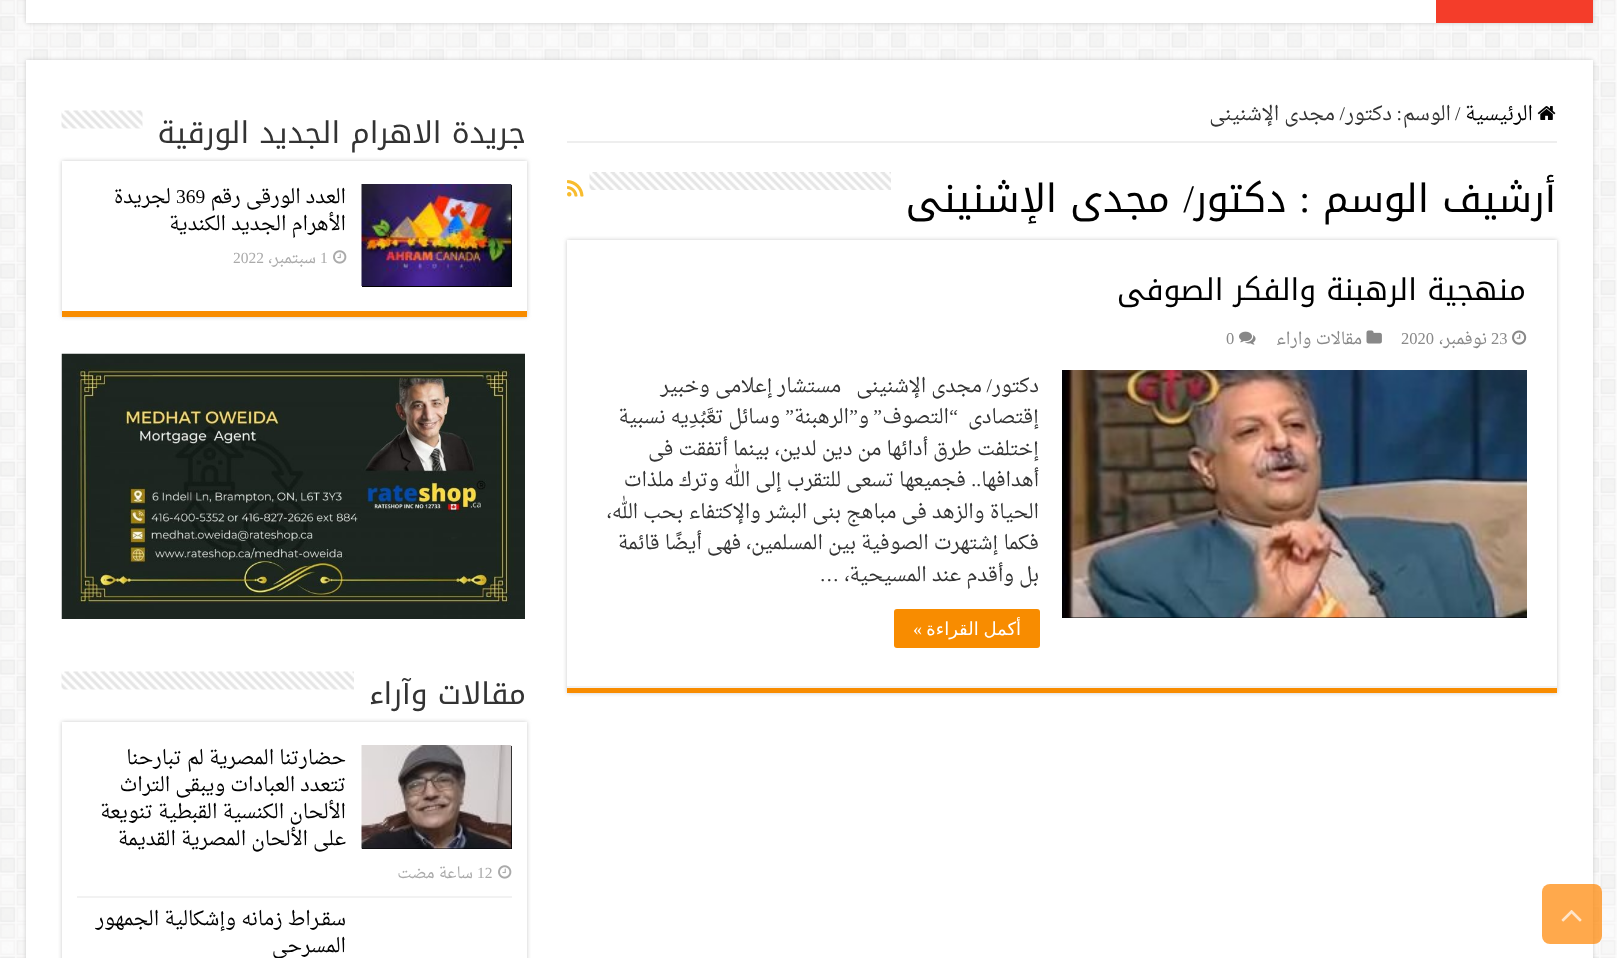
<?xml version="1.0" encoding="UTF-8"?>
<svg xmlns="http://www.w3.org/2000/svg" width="1617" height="958">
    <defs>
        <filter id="blur1" x="-50%" y="-200%" width="200%" height="500%"><feGaussianBlur stdDeviation="2"/></filter>
        <clipPath id="clip1"><path d="M 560 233 H 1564 V 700 H 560 Z M 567 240 H 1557 V 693 H 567 Z" clip-rule="evenodd"/></clipPath>
    </defs>
    <rect width="100%" height="100%" fill="#FFFFFF"/>
    <image x="0" y="0" width="1617" height="958" href="img_01.png"/>
    <rect x="26" y="60" width="1567" height="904" fill="#CACACA" filter="url(#blur1)"/>
    <rect x="26" y="60" width="1567" height="898" fill="#FFFFFF"/>
    <rect x="1542" y="884" width="60" height="60" rx="8" fill="#FF8500" fill-opacity="0.7"/>
    <image x="1561" y="910" width="21" height="12" href="img_02.png"/>
    <rect x="26" y="-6" width="1567" height="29" fill="#CACACA" filter="url(#blur1)"/>
    <rect x="26" y="0" width="1410" height="23" fill="#FFFFFF"/>
    <rect x="1436" y="0" width="157" height="23" fill="#F43D2A"/>
    <rect x="567" y="141" width="990" height="2" fill="#EEEEEE"/>
    <image x="1537" y="106" width="19" height="14" href="img_03.png"/>
    <text x="1533" y="120" font-family="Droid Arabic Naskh" font-size="19.5" direction="rtl" fill="#000000">الرئيسية</text>
    <text x="1455" y="120" font-family="Liberation Serif" font-size="19.5" fill="#333333">/</text>
    <text x="1451" y="120" font-family="Droid Arabic Naskh" font-size="19.5" direction="rtl" fill="#333333">الوسم</text>
    <text x="1402" y="120" font-family="Liberation Serif" font-size="19.5" direction="rtl" fill="#333333">:</text>
    <text x="1345" y="120" font-family="Liberation Serif" font-size="19.5" direction="rtl" fill="#333333">/</text>
    <text x="1392" y="120" font-family="Droid Arabic Naskh" font-size="19.5" direction="rtl" fill="#333333">دكتور</text>
    <text x="1335" y="120" font-family="Droid Arabic Naskh" font-size="19.5" direction="rtl" fill="#333333">مجدى الإشنينى</text>
    <text x="1556" y="212" font-family="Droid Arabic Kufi" font-size="39" direction="rtl" fill="#000000">أرشيف الوسم</text>
    <text x="1310" y="212" font-family="Liberation Serif" font-size="39" direction="rtl" fill="#000000">:</text>
    <text x="1194" y="212" font-family="Liberation Serif" font-size="39" direction="rtl" fill="#000000">/</text>
    <text x="1286" y="212" font-family="Droid Arabic Kufi" font-size="39" direction="rtl" fill="#000000">دكتور</text>
    <text x="1170" y="212" font-family="Droid Arabic Kufi" font-size="39" direction="rtl" fill="#000000">مجدى الإشنينى</text>
    <image x="589" y="172" width="302" height="18" href="img_04.png"/>
    <image x="567" y="180" width="17" height="17" href="img_05.png"/>
    <g clip-path="url(#clip1)">
        <rect x="567" y="240" width="990" height="453" fill="#CACACA" filter="url(#blur1)"/>
    </g>
    <rect x="567" y="688" width="990" height="5" fill="#F88C00"/>
    <rect x="567" y="686" width="990" height="2" fill="#F2F2F2"/>
    <text x="1526" y="300" font-family="Droid Arabic Kufi" font-size="30" direction="rtl" fill="#000000">منهجية الرهبنة والفكر الصوفى</text>
    <image x="1512" y="330" width="15" height="15" href="img_06.png"/>
    <text x="1491" y="344" font-family="Liberation Serif" font-size="16.5" fill="#888888">23</text>
    <text x="1487" y="344" font-family="Droid Arabic Naskh" font-size="16.5" direction="rtl" fill="#888888">نوفمبر،</text>
    <text x="1401" y="344" font-family="Liberation Serif" font-size="16.5" fill="#888888">2020</text>
    <image x="1366" y="330" width="16" height="14" href="img_07.png"/>
    <text x="1362" y="344" font-family="Droid Arabic Naskh" font-size="16.5" direction="rtl" fill="#888888">مقالات واراء</text>
    <image x="1239" y="331" width="17" height="14" href="img_08.png"/>
    <text x="1226" y="344" font-family="Liberation Serif" font-size="16.5" fill="#888888">0</text>
    <rect x="1062" y="617" width="465" height="1" fill="#000000"/>
    <image x="1062" y="370" width="465" height="248" href="img_09.png"/>
    <text x="992" y="392" font-family="Liberation Serif" font-size="19.5" direction="rtl" fill="#333333">/</text>
    <text x="1039" y="392" font-family="Droid Arabic Naskh" font-size="19.5" direction="rtl" fill="#333333">دكتور</text>
    <text x="982" y="392" font-family="Droid Arabic Naskh" font-size="19.5" direction="rtl" fill="#333333" xml:space="preserve">مجدى الإشنينى   مستشار إعلامى وخبير</text>
    <text x="1039" y="423" font-family="Droid Arabic Naskh" font-size="19.5" direction="rtl" fill="#333333">إقتصادى</text>
    <text x="958" y="423" font-family="Liberation Serif" font-size="19.5" direction="rtl" fill="#333333">“</text>
    <text x="949" y="423" font-family="Droid Arabic Naskh" font-size="19.5" direction="rtl" fill="#333333">التصوف</text>
    <text x="882" y="423" font-family="Liberation Serif" font-size="19.5" direction="rtl" fill="#333333">”</text>
    <text x="858" y="423" font-family="Liberation Serif" font-size="19.5" direction="rtl" fill="#333333">”</text>
    <text x="849" y="423" font-family="Droid Arabic Naskh" font-size="19.5" direction="rtl" fill="#333333">الرهبنة</text>
    <text x="794" y="423" font-family="Liberation Serif" font-size="19.5" direction="rtl" fill="#333333">”</text>
    <text x="780" y="423" font-family="Droid Arabic Naskh" font-size="19.5" direction="rtl" fill="#333333">وسائل تعَّبُدِيه نسبية</text>
    <text x="869" y="423" font-family="Droid Arabic Naskh" font-size="19.5" direction="rtl" fill="#333333">و</text>
    <text font-family="Droid Arabic Naskh" font-size="19.5" direction="rtl" fill="#333333">
        <tspan x="1039" y="455">إختلفت طرق أدائها من دين لدين، بينما أتفقت فى</tspan>
        <tspan x="1039" y="486">أهدافها</tspan>
    </text>
    <text x="981" y="486" font-family="Liberation Serif" font-size="19.5" direction="rtl" fill="#333333">..</text>
    <text x="966" y="486" font-family="Droid Arabic Naskh" font-size="19.5" direction="rtl" fill="#333333">فجميعها تسعى للتقرب إلى الله وترك ملذات</text>
    <text font-family="Droid Arabic Naskh" font-size="19.5" direction="rtl" fill="#333333">
        <tspan x="1039" y="518">الحياة والزهد فى مباهج بنى البشر والإكتفاء بحب الله،</tspan>
        <tspan x="1039" y="549">فكما إشتهرت الصوفية بين المسلمين، فهى أيضًا قائمة</tspan>
        <tspan x="1039" y="581">بل وأقدم عند المسيحية،</tspan>
    </text>
    <text x="839" y="581" font-family="Liberation Serif" font-size="19.5" direction="rtl" fill="#333333">…</text>
    <rect x="894" y="609" width="146" height="39" rx="3" fill="#F88C00"/>
    <text x="1021" y="635" word-spacing="-1" font-family="DejaVu Sans" font-size="18" direction="rtl" fill="#FFFFFF">أكمل القراءة</text>
    <text x="922" y="635" font-family="Liberation Serif" font-size="18" direction="rtl" fill="#FFFFFF">»</text>
    <text x="526" y="143" font-family="Droid Arabic Kufi" font-size="30" direction="rtl" fill="#333333">جريدة الاهرام الجديد الورقية</text>
    <image x="61" y="110" width="82" height="19" href="img_10.png"/>
    <rect x="62" y="161" width="465" height="156" fill="#CACACA" filter="url(#blur1)"/>
    <rect x="62" y="161" width="465" height="150" fill="#FFFFFF"/>
    <rect x="62" y="311" width="465" height="6" fill="#F88C00"/>
    <rect x="362" y="185" width="150" height="102" fill="#000000"/>
    <image x="361" y="184" width="151" height="102" href="img_11.png"/>
    <text x="346" y="203" font-family="Droid Arabic Naskh" font-size="19.5" direction="rtl" fill="#000000">العدد الورقى رقم</text>
    <text x="176" y="203" font-family="Liberation Serif" font-size="19.5" fill="#000000">369</text>
    <text x="171" y="203" font-family="Droid Arabic Naskh" font-size="19.5" direction="rtl" fill="#000000">لجريدة</text>
    <text x="346" y="230" font-family="Droid Arabic Naskh" font-size="19.5" direction="rtl" fill="#000000">الأهرام الجديد الكندية</text>
    <image x="333" y="250" width="14" height="14" href="img_12.png"/>
    <text x="320" y="263" font-family="Liberation Serif" font-size="15.5" fill="#AAAAAA">1</text>
    <text x="316" y="263" font-family="Droid Arabic Naskh" font-size="15.5" direction="rtl" fill="#AAAAAA">سبتمبر،</text>
    <text x="233" y="263" font-family="Liberation Serif" font-size="15.5" fill="#AAAAAA">2022</text>
    <image x="61" y="353" width="464" height="266" href="img_13.png"/>
    <text x="526" y="704" font-family="Droid Arabic Kufi" font-size="30" direction="rtl" fill="#333333">مقالات وآراء</text>
    <image x="61" y="671" width="293" height="19" href="img_14.png"/>
    <rect x="62" y="722" width="465" height="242" fill="#CACACA" filter="url(#blur1)"/>
    <rect x="62" y="722" width="465" height="236" fill="#FFFFFF"/>
    <rect x="77" y="896" width="435" height="2" fill="#F2F2F2"/>
    <rect x="362" y="746" width="150" height="103" fill="#000000"/>
    <image x="361" y="745" width="151" height="104" href="img_15.png"/>
    <text font-family="Droid Arabic Naskh" font-size="19.5" direction="rtl" fill="#000000">
        <tspan x="346" y="764">حضارتنا المصرية لم تبارحنا</tspan>
        <tspan x="346" y="791">تتعدد العبادات ويبقى التراث</tspan>
        <tspan x="346" y="818">الألحان الكنسية القبطية تنويعة</tspan>
        <tspan x="346" y="845">على الألحان المصرية القديمة</tspan>
    </text>
    <image x="498" y="865" width="14" height="14" href="img_12.png"/>
    <text x="477" y="878" font-family="Liberation Serif" font-size="15.5" fill="#AAAAAA">12</text>
    <text x="473" y="878" font-family="Droid Arabic Naskh" font-size="15.5" direction="rtl" fill="#AAAAAA">ساعة مضت</text>
    <text font-family="Droid Arabic Naskh" font-size="19.5" direction="rtl" fill="#000000">
        <tspan x="346" y="925">سقـراط زمانه وإشكالية الجمهور</tspan>
        <tspan x="346" y="952">المسرحي</tspan>
    </text>
</svg>
